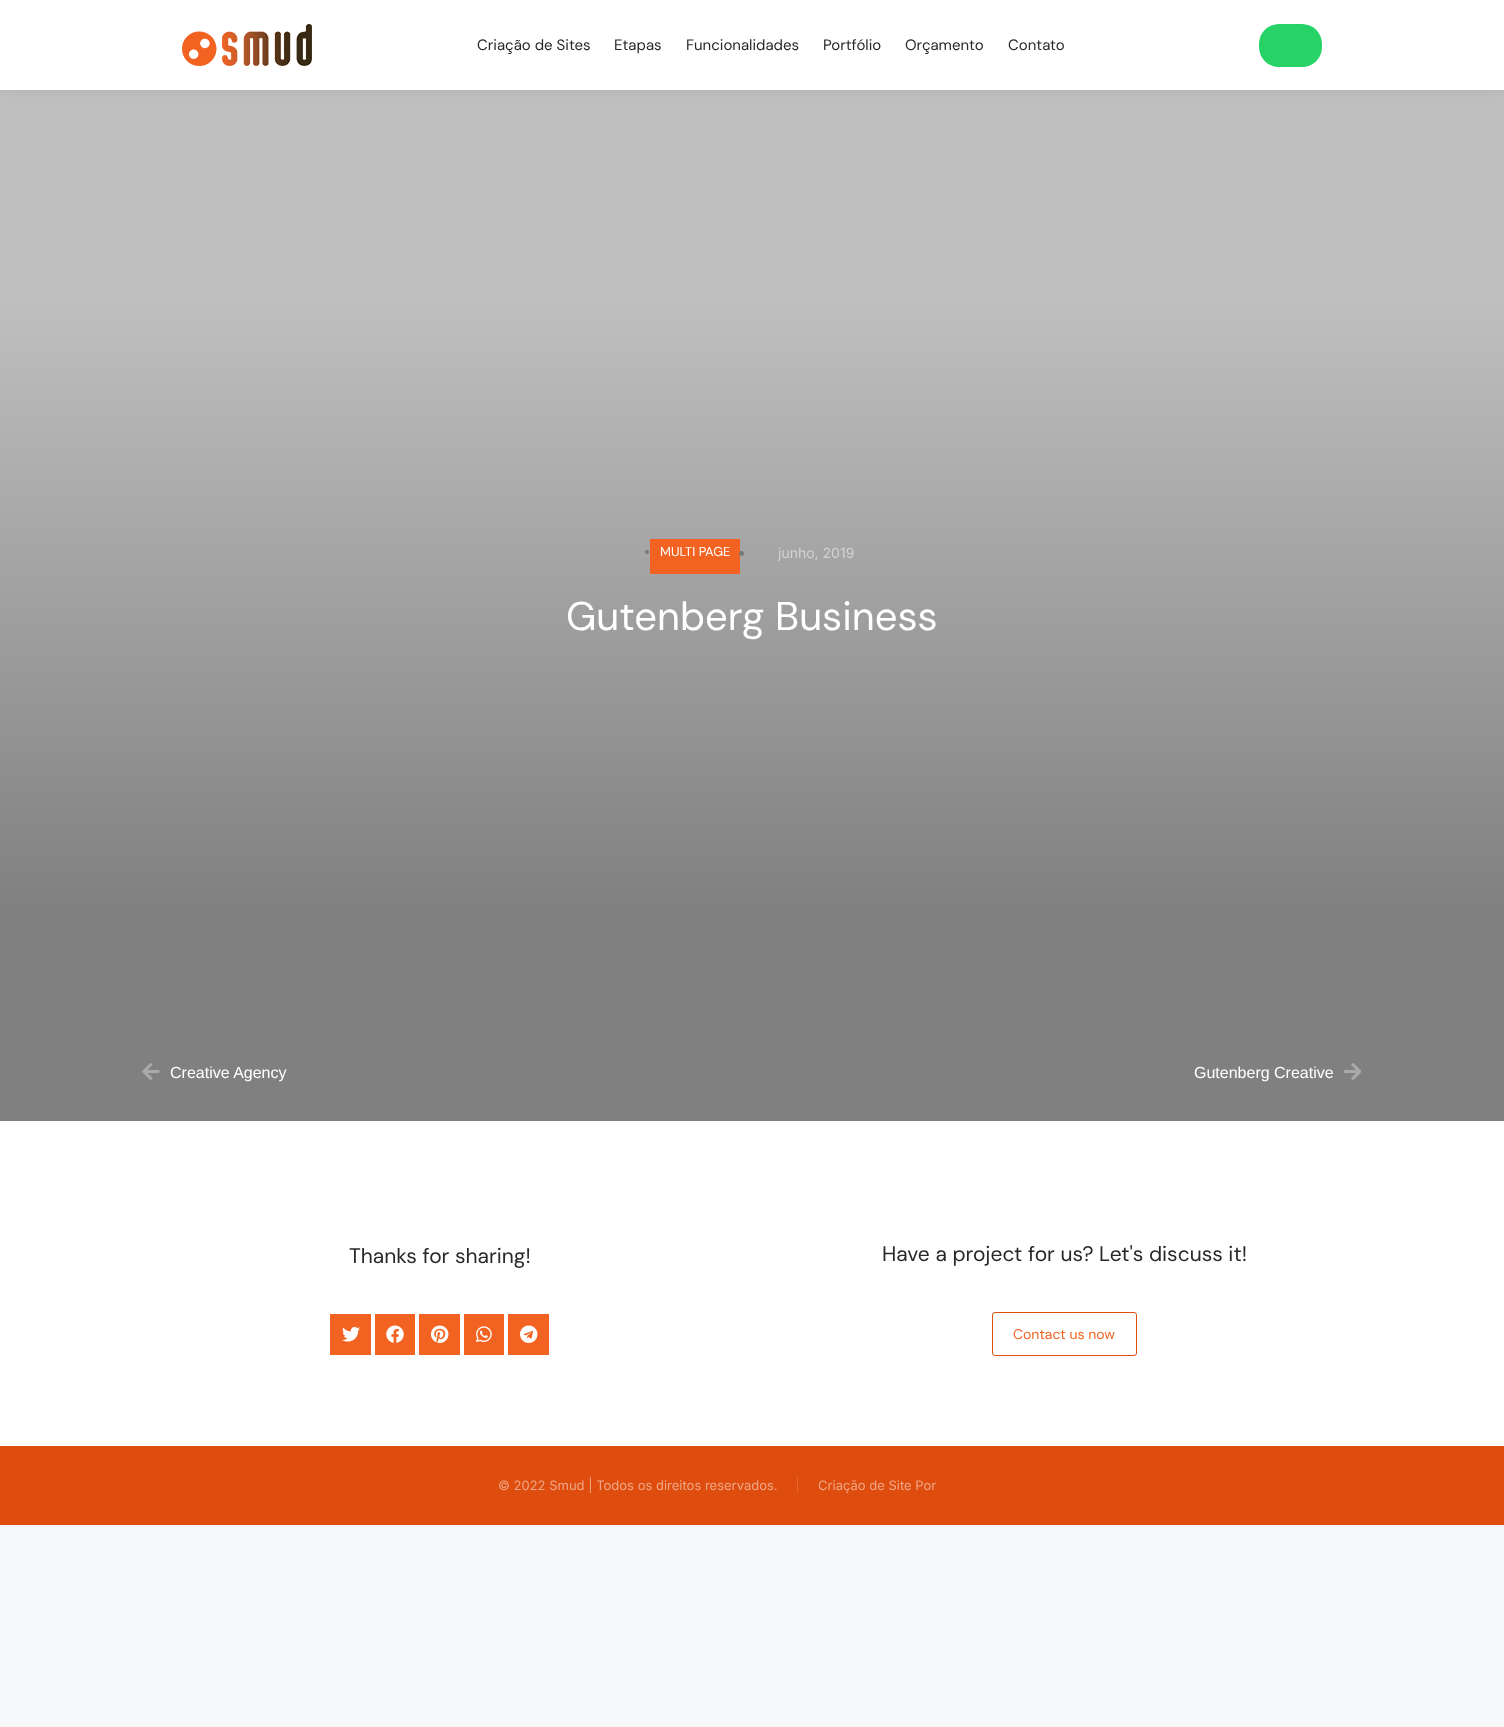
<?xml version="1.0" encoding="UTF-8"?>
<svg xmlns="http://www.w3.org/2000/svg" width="1504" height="1727">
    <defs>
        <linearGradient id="g1" gradientUnits="userSpaceOnUse" x1="752" y1="85" x2="752" y2="1121"><stop offset="0.2" stop-color="#C0C0C0"/><stop offset="0.8" stop-color="#808080"/></linearGradient>
        <filter id="blur1" x="-50%" y="-200%" width="200%" height="500%"><feGaussianBlur stdDeviation="7.5"/></filter>
    </defs>
    <rect width="100%" height="100%" fill="#F6F8F9"/>
    <rect x="0" y="1121" width="1504" height="325" fill="#FFFFFF"/>
    <rect x="0" y="90" width="1504" height="1031" fill="url(#g1)"/>
    <rect x="-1" y="-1" width="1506" height="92" fill="#000000" fill-opacity="0.07" filter="url(#blur1)"/>
    <rect x="0" y="0" width="1504" height="90" fill="#FFFFFF"/>
    <image x="182" y="24" width="130" height="42" href="img_01.png"/>
    <text x="477" y="50" font-family="DM Sans" font-size="15" fill="#282828">Criação de Sites</text>
    <text x="614" y="50" font-family="DM Sans" font-size="15" fill="#282828">Etapas</text>
    <text x="686" y="50" font-family="DM Sans" font-size="15" fill="#282828">Funcionalidades</text>
    <text x="823" y="50" font-family="DM Sans" font-size="15" fill="#282828">Portfólio</text>
    <text x="905" y="50" font-family="DM Sans" font-size="15" fill="#282828">Orçamento</text>
    <text x="1008" y="50" font-family="DM Sans" font-size="15" fill="#282828">Contato</text>
    <rect x="1259" y="24" width="63" height="43" rx="20" fill="#27D367"/>
    <rect x="650" y="539" width="90" height="35" fill="#F26322"/>
    <circle cx="647" cy="552" r="2" fill="#787878"/>
    <text x="660" y="556" font-family="DM Sans" font-size="13" fill="#FFFFFF">MULTI PAGE</text>
    <circle cx="741.5" cy="553.5" r="2.5" fill="#787878"/>
    <text x="778" y="558" font-family="Inter" font-size="14" fill="#D2D2D2">junho, 2019</text>
    <text x="566" y="630" font-family="DM Sans" font-size="40" fill="#FFFFFF">Gutenberg Business</text>
    <image x="142" y="1063" width="18" height="17" href="img_02.png"/>
    <text x="170" y="1078" font-family="Liberation Sans" font-size="16" fill="#FFFFFF">Creative Agency</text>
    <text x="1194" y="1078" font-family="Liberation Sans" font-size="16" fill="#FFFFFF">Gutenberg Creative</text>
    <image x="1344" y="1063" width="17" height="17" href="img_03.png"/>
    <text x="349" y="1263" font-family="DM Sans" font-size="21" fill="#282828">Thanks for sharing!</text>
    <rect x="330" y="1314" width="41" height="41" fill="#F26322"/>
    <image x="342" y="1326" width="18" height="16" href="img_04.png"/>
    <rect x="375" y="1314" width="40" height="41" fill="#F26322"/>
    <image x="386" y="1325" width="18" height="18" href="img_05.png"/>
    <rect x="419" y="1314" width="41" height="41" fill="#F26322"/>
    <image x="431" y="1325" width="18" height="18" href="img_06.png"/>
    <rect x="464" y="1314" width="40" height="41" fill="#F26322"/>
    <image x="476" y="1326" width="16" height="17" href="img_07.png"/>
    <rect x="508" y="1314" width="41" height="41" fill="#F26322"/>
    <image x="520" y="1325" width="18" height="18" href="img_08.png"/>
    <text x="882" y="1261" font-family="DM Sans" font-size="21" fill="#282828">Have a project for us? Let's discuss it!</text>
    <rect x="992.5" y="1312.5" width="144" height="43" rx="2.5" fill="none" stroke="#DE4D0D"/>
    <text x="1013" y="1339" font-family="DM Sans" font-size="14" fill="#F26322">Contact us now</text>
    <rect x="0" y="1446" width="1504" height="79" fill="#DE4D0D"/>
    <text x="498" y="1490" font-family="Inter" font-size="13" fill="#EFA686">© 2022 Smud | Todos os direitos reservados.</text>
    <rect x="797" y="1477" width="1" height="16" fill="#E36934"/>
    <text x="818" y="1490" font-family="Inter" font-size="13" fill="#EFA686">Criação de Site Por</text>
</svg>
